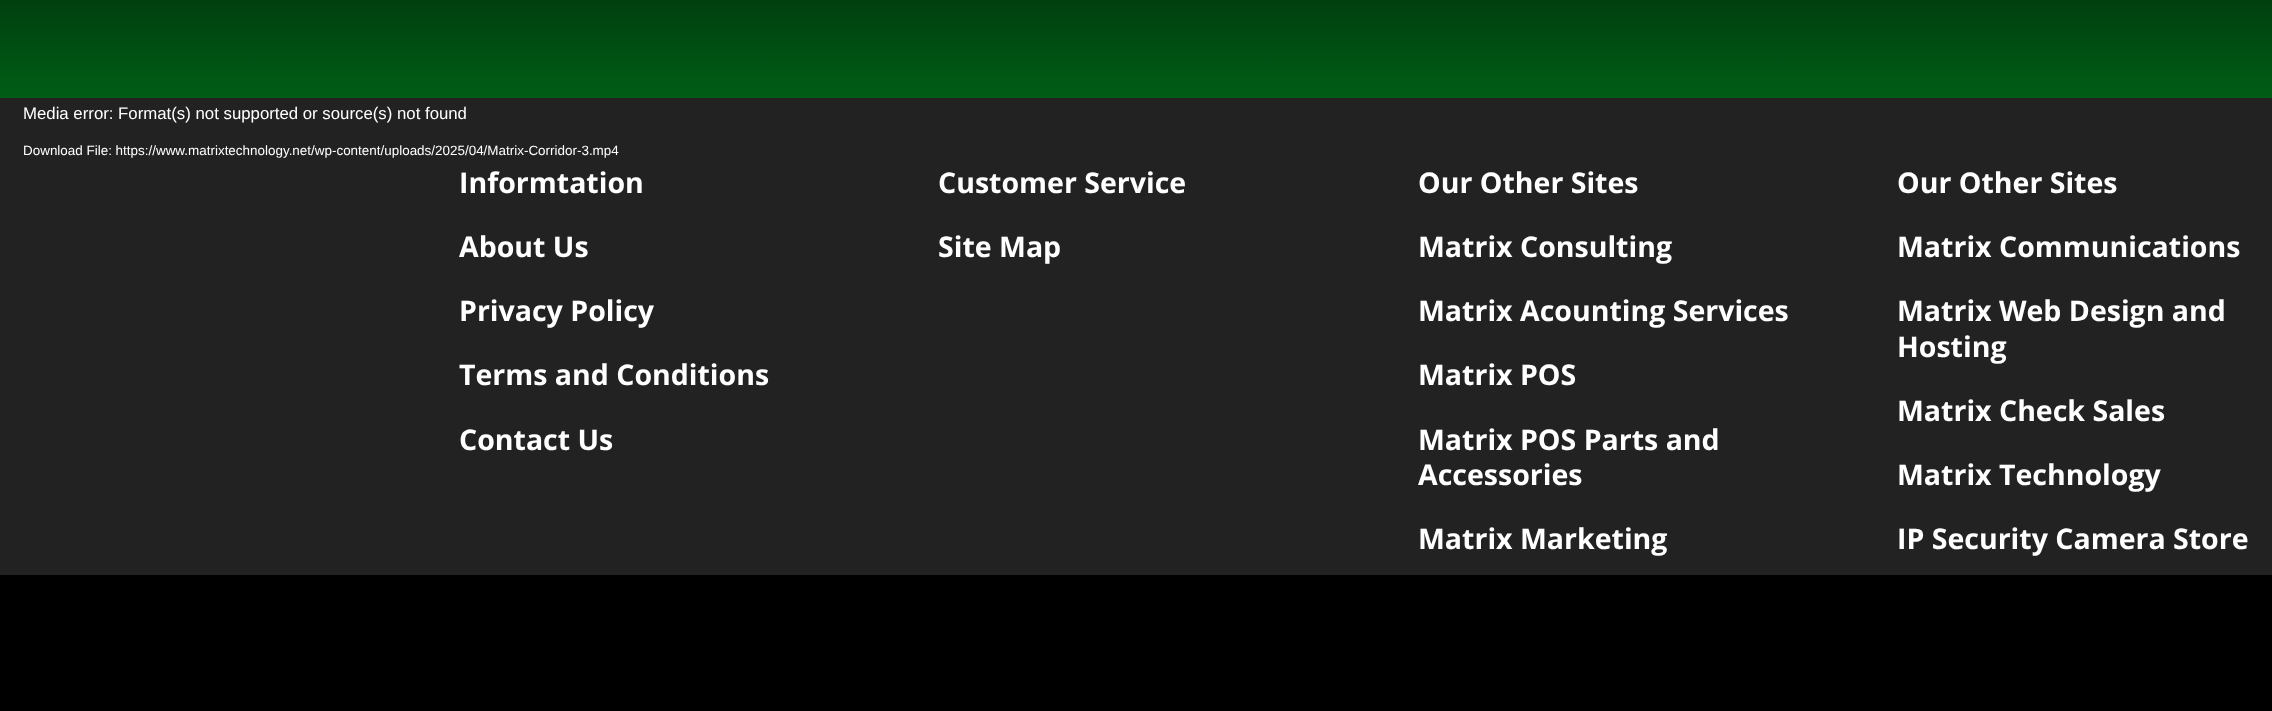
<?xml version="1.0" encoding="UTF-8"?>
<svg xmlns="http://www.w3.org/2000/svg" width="2272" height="711">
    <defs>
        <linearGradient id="g1" gradientUnits="userSpaceOnUse" x1="1136" y1="-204" x2="1136" y2="98"><stop offset="0" stop-color="#000000"/><stop offset="1" stop-color="#005E16"/></linearGradient>
    </defs>
    <rect width="100%" height="100%" fill="#000000"/>
    <rect x="0" y="0" width="2272" height="98" fill="url(#g1)"/>
    <rect x="0" y="98" width="2272" height="477" fill="#222222"/>
    <text x="23" y="119" font-family="Liberation Sans" font-size="16.8" fill="#FFFFFF">Media error: Format(s) not supported or source(s) not found</text>
    <text x="23" y="155" font-family="Liberation Sans" font-size="13.45" fill="#FFFFFF">Download File: https://www.matrixtechnology.net/wp-content/uploads/2025/04/Matrix-Corridor-3.mp4</text>
    <text x="459" y="193" font-family="Open Sans" font-size="28.5" font-weight="700" fill="#FFFFFF">Informtation</text>
    <text x="459" y="257" font-family="Open Sans" font-size="28.5" font-weight="700" fill="#FFFFFF">About Us</text>
    <text x="459" y="321" font-family="Open Sans" font-size="28.5" font-weight="700" fill="#FFFFFF">Privacy Policy</text>
    <text x="459" y="385" font-family="Open Sans" font-size="28.5" font-weight="700" fill="#FFFFFF">Terms and Conditions</text>
    <text x="459" y="450" font-family="Open Sans" font-size="28.5" font-weight="700" fill="#FFFFFF">Contact Us</text>
    <text x="938" y="193" font-family="Open Sans" font-size="28.5" font-weight="700" fill="#FFFFFF">Customer Service</text>
    <text x="938" y="257" font-family="Open Sans" font-size="28.5" font-weight="700" fill="#FFFFFF">Site Map</text>
    <text x="1418" y="193" font-family="Open Sans" font-size="28.5" font-weight="700" fill="#FFFFFF">Our Other Sites</text>
    <text x="1418" y="257" font-family="Open Sans" font-size="28.5" font-weight="700" fill="#FFFFFF">Matrix Consulting</text>
    <text x="1418" y="321" font-family="Open Sans" font-size="28.5" font-weight="700" fill="#FFFFFF">Matrix Acounting Services</text>
    <text x="1418" y="385" font-family="Open Sans" font-size="28.5" font-weight="700" fill="#FFFFFF">Matrix POS</text>
    <text font-family="Open Sans" font-size="28.5" font-weight="700" fill="#FFFFFF">
        <tspan x="1418" y="450">Matrix POS Parts and</tspan>
        <tspan x="1418" y="485">Accessories</tspan>
    </text>
    <text x="1418" y="549" font-family="Open Sans" font-size="28.5" font-weight="700" fill="#FFFFFF">Matrix Marketing</text>
    <text x="1897" y="193" font-family="Open Sans" font-size="28.5" font-weight="700" fill="#FFFFFF">Our Other Sites</text>
    <text x="1897" y="257" font-family="Open Sans" font-size="28.5" font-weight="700" fill="#FFFFFF">Matrix Communications</text>
    <text font-family="Open Sans" font-size="28.5" font-weight="700" fill="#FFFFFF">
        <tspan x="1897" y="321">Matrix Web Design and</tspan>
        <tspan x="1897" y="357">Hosting</tspan>
    </text>
    <text x="1897" y="421" font-family="Open Sans" font-size="28.5" font-weight="700" fill="#FFFFFF">Matrix Check Sales</text>
    <text x="1897" y="485" font-family="Open Sans" font-size="28.5" font-weight="700" fill="#FFFFFF">Matrix Technology</text>
    <text x="1897" y="549" font-family="Open Sans" font-size="28.5" font-weight="700" fill="#FFFFFF">IP Security Camera Store</text>
</svg>
